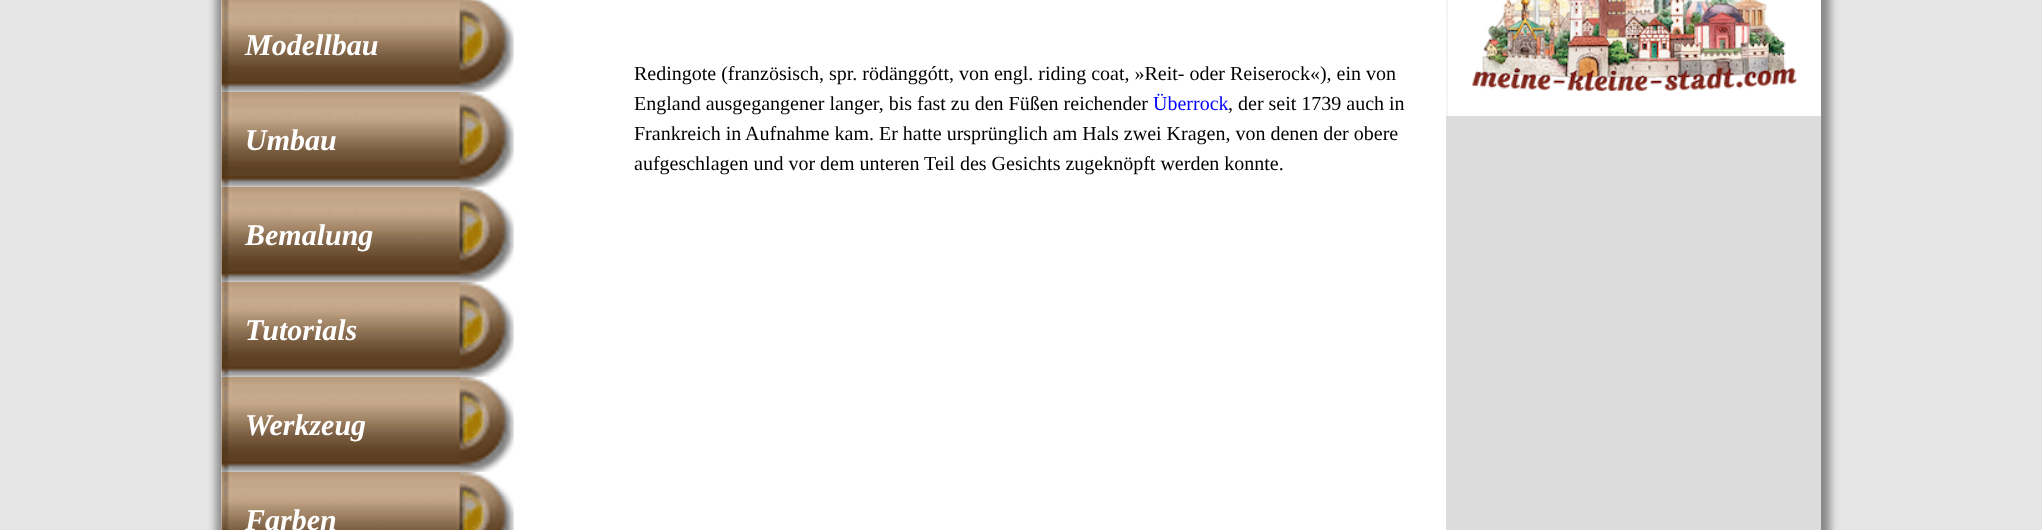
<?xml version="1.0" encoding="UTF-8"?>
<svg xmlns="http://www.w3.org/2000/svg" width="2042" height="530">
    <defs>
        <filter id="blur1" x="-50%" y="-200%" width="200%" height="500%"><feGaussianBlur stdDeviation="4.5"/></filter>
    </defs>
    <rect width="100%" height="100%" fill="#E6E6E6"/>
    <rect x="216" y="-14" width="1600" height="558" fill="#888888" filter="url(#blur1)"/>
    <rect x="230" y="-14" width="1600" height="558" fill="#888888" filter="url(#blur1)"/>
    <rect x="221" y="0" width="1225" height="530" fill="#FFFFFF"/>
    <image x="221" y="0" width="293" height="92" href="img_01.png"/>
    <text x="245" y="55" font-family="Liberation Serif" font-size="30" font-weight="700" font-style="italic" fill="#FFFFFF">Modellbau</text>
    <image x="221" y="92" width="293" height="95" href="img_02.png"/>
    <text x="245" y="150" font-family="Liberation Serif" font-size="30" font-weight="700" font-style="italic" fill="#FFFFFF">Umbau</text>
    <image x="221" y="187" width="293" height="95" href="img_03.png"/>
    <text x="245" y="245" font-family="Liberation Serif" font-size="30" font-weight="700" font-style="italic" fill="#FFFFFF">Bemalung</text>
    <image x="221" y="282" width="293" height="95" href="img_02.png"/>
    <text x="245" y="340" font-family="Liberation Serif" font-size="30" font-weight="700" font-style="italic" fill="#FFFFFF">Tutorials</text>
    <image x="221" y="377" width="293" height="95" href="img_02.png"/>
    <text x="245" y="435" font-family="Liberation Serif" font-size="30" font-weight="700" font-style="italic" fill="#FFFFFF">Werkzeug</text>
    <image x="221" y="472" width="293" height="58" href="img_04.png"/>
    <text x="245" y="530" font-family="Liberation Serif" font-size="30" font-weight="700" font-style="italic" fill="#FFFFFF">Farben</text>
    <text font-family="Liberation Serif" font-size="20" fill="#000000">
        <tspan x="634" y="80">Redingote (französisch, spr. rödänggótt, von engl. riding coat, »Reit- oder Reiserock«), ein von</tspan>
        <tspan x="634" y="110">England ausgegangener langer, bis fast zu den Füßen reichender</tspan>
    </text>
    <text x="1153" y="110" font-family="Liberation Serif" font-size="20" fill="#0000FF">Überrock</text>
    <text x="1228" y="110" font-family="Liberation Serif" font-size="20" fill="#000000">, der seit 1739 auch in</text>
    <text font-family="Liberation Serif" font-size="20" fill="#000000">
        <tspan x="634" y="140">Frankreich in Aufnahme kam. Er hatte ursprünglich am Hals zwei Kragen, von denen der obere</tspan>
        <tspan x="634" y="170">aufgeschlagen und vor dem unteren Teil des Gesichts zugeknöpft werden konnte.</tspan>
    </text>
    <rect x="1446" y="116" width="375" height="414" fill="#DCDCDC"/>
    <rect x="1446" y="0" width="375" height="116" fill="#FFFFFF"/>
    <path d="M 1447 -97.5 V 116" fill="none" stroke="#DCDCDC" stroke-width="1.2" stroke-dasharray="1.25 1.25"/>
    <image x="1472" y="0" width="325" height="91" href="img_05.png"/>
</svg>
